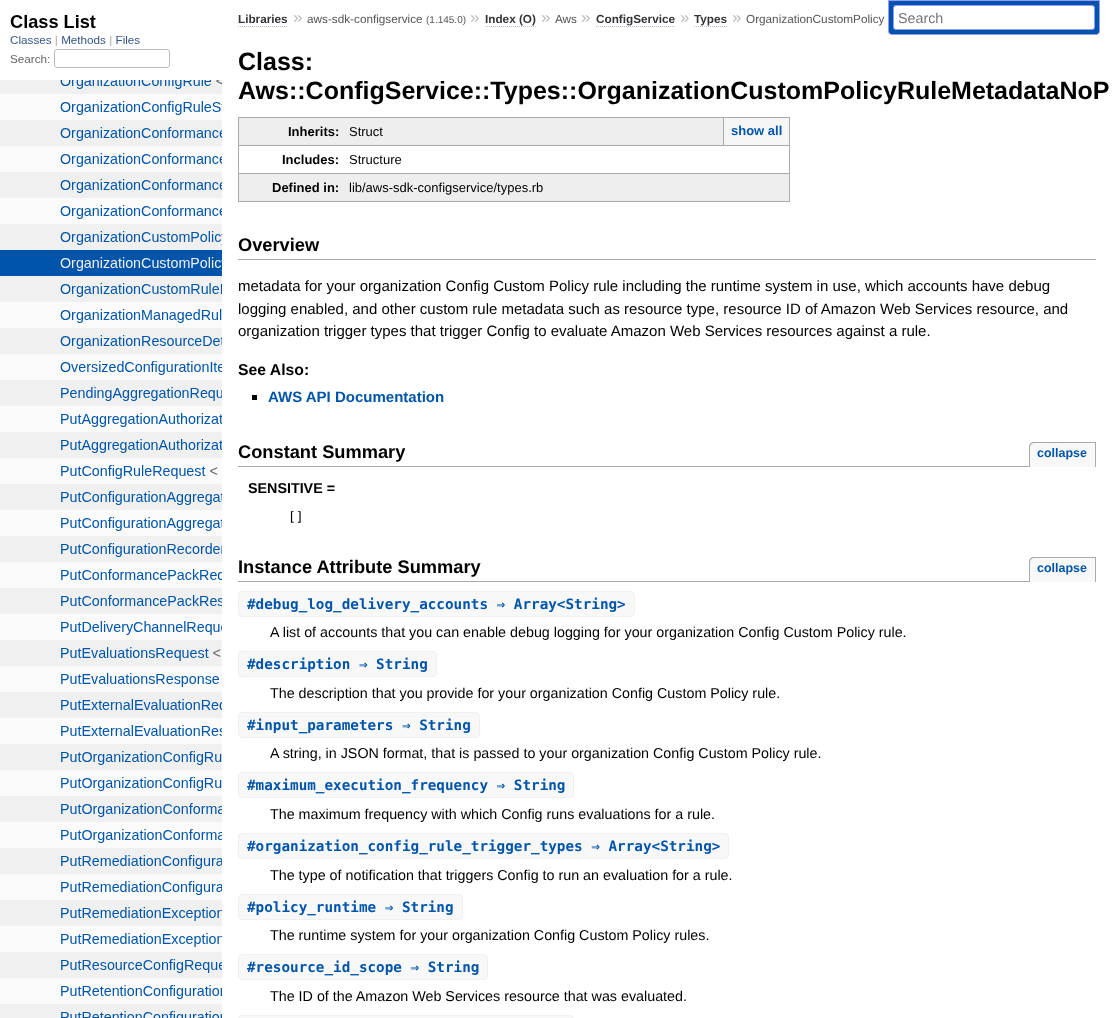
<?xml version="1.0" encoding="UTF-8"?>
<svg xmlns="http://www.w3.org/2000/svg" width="1112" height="1018">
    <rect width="100%" height="100%" fill="#FFFFFF"/>
    <image x="0" y="15" width="222" height="1003" href="img_01.png"/>
    <text x="238" y="23" font-family="Liberation Sans" font-size="11.75" font-weight="700" fill="#333333">Libraries</text>
    <path d="M 238 26.5 H 288" fill="none" stroke="#BBBBDD" stroke-dasharray="1 1"/>
    <text x="293" y="23" font-family="Liberation Sans" font-size="17" fill="#BBBBBB">»</text>
    <text x="307" y="23" font-family="Liberation Sans" font-size="11.75" fill="#555555">aws-sdk-configservice</text>
    <text x="426" y="23" font-family="Liberation Sans" font-size="10" fill="#555555">(1.145.0)</text>
    <text x="470" y="23" font-family="Liberation Sans" font-size="17" fill="#BBBBBB">»</text>
    <text x="485" y="23" font-family="Liberation Sans" font-size="11.75" font-weight="700" fill="#333333">Index (O)</text>
    <path d="M 485 26.5 H 536" fill="none" stroke="#BBBBDD" stroke-dasharray="1 1"/>
    <text x="541" y="23" font-family="Liberation Sans" font-size="17" fill="#BBBBBB">»</text>
    <text x="555" y="23" font-family="Liberation Sans" font-size="11.75" fill="#555555">Aws</text>
    <text x="581" y="23" font-family="Liberation Sans" font-size="17" fill="#BBBBBB">»</text>
    <text x="596" y="23" font-family="Liberation Sans" font-size="11.75" font-weight="700" fill="#333333">ConfigService</text>
    <path d="M 596 26.5 H 675" fill="none" stroke="#BBBBDD" stroke-dasharray="1 1"/>
    <text x="680" y="23" font-family="Liberation Sans" font-size="17" fill="#BBBBBB">»</text>
    <text x="694" y="23" font-family="Liberation Sans" font-size="11.75" font-weight="700" fill="#333333">Types</text>
    <path d="M 694 26.5 H 727" fill="none" stroke="#BBBBDD" stroke-dasharray="1 1"/>
    <text x="732" y="23" font-family="Liberation Sans" font-size="17" fill="#BBBBBB">»</text>
    <text x="746" y="23" font-family="Liberation Sans" font-size="11.75" fill="#555555">OrganizationCustomPolicy</text>
    <path d="M 888.5 0.5 H 1099.5 V 31 C 1099.5 33 1098 34.5 1096 34.5 H 892 C 890 34.5 888.5 33 888.5 31 Z" fill="#0055AA" stroke="#9999FF"/>
    <rect x="893.5" y="5.5" width="201" height="24" rx="2.5" fill="#FFFFFF" stroke="#9999FF"/>
    <text x="898" y="23" font-family="Liberation Sans" font-size="14.3" fill="#757575">Search</text>
    <text font-family="Liberation Sans" font-size="25" font-weight="700" fill="#000000">
        <tspan x="238" y="70">Class:</tspan>
        <tspan x="238" y="99">Aws::ConfigService::Types::OrganizationCustomPolicyRuleMetadataNoP</tspan>
    </text>
    <rect x="239" y="118" width="484" height="27" fill="#EEEEEE"/>
    <rect x="238" y="117" width="552" height="1" fill="#AAAAAA"/>
    <rect x="238" y="117" width="1" height="28" fill="#AAAAAA"/>
    <text x="288" y="136" font-family="Liberation Sans" font-size="13" font-weight="700" fill="#000000">Inherits:</text>
    <rect x="238" y="145" width="552" height="1" fill="#AAAAAA"/>
    <rect x="238" y="173" width="552" height="1" fill="#AAAAAA"/>
    <rect x="789" y="117" width="1" height="85" fill="#AAAAAA"/>
    <text x="349" y="136" font-family="Liberation Sans" font-size="13" fill="#000000">Struct</text>
    <rect x="724" y="118" width="65" height="27" fill="#F6F6F6"/>
    <rect x="723" y="118" width="1" height="27" fill="#AAAAAA"/>
    <text x="731" y="135" font-family="Liberation Sans" font-size="13" font-weight="700" fill="#0055AA">show all</text>
    <rect x="238" y="145" width="1" height="28" fill="#AAAAAA"/>
    <text x="282" y="164" font-family="Liberation Sans" font-size="13" font-weight="700" fill="#000000">Includes:</text>
    <text x="349" y="164" font-family="Liberation Sans" font-size="13" fill="#000000">Structure</text>
    <rect x="239" y="174" width="550" height="27" fill="#EEEEEE"/>
    <rect x="238" y="201" width="111" height="1" fill="#AAAAAA"/>
    <rect x="238" y="173" width="1" height="29" fill="#AAAAAA"/>
    <text x="272" y="192" font-family="Liberation Sans" font-size="13" font-weight="700" fill="#000000">Defined in:</text>
    <rect x="349" y="201" width="441" height="1" fill="#AAAAAA"/>
    <text x="349" y="192" font-family="Liberation Sans" font-size="13" fill="#000000">lib/aws-sdk-configservice/types.rb</text>
    <rect x="238" y="259" width="858" height="1" fill="#AAAAAA"/>
    <text x="238" y="251" font-family="Liberation Sans" font-size="18.25" font-weight="700" fill="#000000">Overview</text>
    <text font-family="Liberation Sans" font-size="15" fill="#000000">
        <tspan x="238" y="291">metadata for your organization Config Custom Policy rule including the runtime system in use, which accounts have debug</tspan>
        <tspan x="238" y="314">logging enabled, and other custom rule metadata such as resource type, resource ID of Amazon Web Services resource, and</tspan>
        <tspan x="238" y="336">organization trigger types that trigger Config to evaluate Amazon Web Services resources against a rule.</tspan>
    </text>
    <text x="238" y="375" font-family="Liberation Sans" font-size="15.75" font-weight="700" fill="#000000">See Also:</text>
    <rect x="252" y="395" width="5" height="5" fill="#000000"/>
    <text x="268" y="402" font-family="Liberation Sans" font-size="15" font-weight="700" fill="#0055AA">AWS API Documentation</text>
    <rect x="238" y="466" width="791" height="1" fill="#AAAAAA"/>
    <text x="238" y="458" font-family="Liberation Sans" font-size="18.25" font-weight="700" fill="#000000">Constant Summary</text>
    <path d="M 1034 442 H 1096 V 467 H 1029 V 447 C 1029 444 1031 442 1034 442 Z" fill="#F8F8F8"/>
    <path d="M 1034 442 H 1096 V 467 H 1029 V 447 C 1029 444 1031 442 1034 442 Z M 1034 443 H 1095 V 467 H 1030 V 447 C 1030 445 1032 443 1034 443 Z" fill="#AAAAAA" fill-rule="evenodd"/>
    <text x="1037" y="457" font-family="Liberation Sans" font-size="12.5" font-weight="700" fill="#0055AA">collapse</text>
    <text x="248" y="493" font-family="Liberation Sans" font-size="14.3" font-weight="700" fill="#000000">SENSITIVE =</text>
    <text x="288" y="521" font-family="DejaVu Sans Mono" font-size="13" fill="#000000">[]</text>
    <rect x="238" y="581" width="791" height="1" fill="#AAAAAA"/>
    <text x="238" y="573" font-family="Liberation Sans" font-size="18.25" font-weight="700" fill="#000000">Instance Attribute Summary</text>
    <path d="M 1034 557 H 1096 V 582 H 1029 V 562 C 1029 559 1031 557 1034 557 Z" fill="#F8F8F8"/>
    <path d="M 1034 557 H 1096 V 582 H 1029 V 562 C 1029 559 1031 557 1034 557 Z M 1034 558 H 1095 V 582 H 1030 V 562 C 1030 560 1032 558 1034 558 Z" fill="#AAAAAA" fill-rule="evenodd"/>
    <text x="1037" y="572" font-family="Liberation Sans" font-size="12.5" font-weight="700" fill="#0055AA">collapse</text>
    <path d="M 243 591 H 256 V 617 H 243 C 240 617 238 615 238 612 V 596 C 238 593 240 591 243 591 Z" fill="#F8F8F8"/>
    <path d="M 243 591 H 256 V 617 H 243 C 240 617 238 615 238 612 V 596 C 238 593 240 591 243 591 Z M 243 592 H 256 V 616 H 243 C 241 616 239 614 239 612 V 596 C 239 594 241 592 243 592 Z" fill="#F0F0F0" fill-rule="evenodd"/>
    <rect x="256" y="592" width="232" height="24" fill="#F8F8F8"/>
    <path d="M 488 591 H 630 C 633 591 635 593 635 596 V 612 C 635 615 633 617 630 617 H 488 Z" fill="#F8F8F8"/>
    <path d="M 488 591 H 630 C 633 591 635 593 635 596 V 612 C 635 615 633 617 630 617 H 488 Z M 488 592 H 630 C 632 592 634 594 634 596 V 612 C 634 614 632 616 630 616 H 488 Z" fill="#F0F0F0" fill-rule="evenodd"/>
    <text x="247" y="609" font-family="DejaVu Sans Mono" font-size="14.3" font-weight="700" fill="#0055AA">#debug_log_delivery_accounts ⇒ Array&lt;String&gt;</text>
    <rect x="256" y="591" width="232" height="1" fill="#F0F0F0"/>
    <rect x="256" y="616" width="232" height="1" fill="#F0F0F0"/>
    <text x="270" y="637" font-family="Liberation Sans" font-size="14.3" fill="#000000">A list of accounts that you can enable debug logging for your organization Config Custom Policy rule.</text>
    <path d="M 243 651 H 256 V 677 H 243 C 240 677 238 675 238 672 V 656 C 238 653 240 651 243 651 Z" fill="#F8F8F8"/>
    <path d="M 243 651 H 256 V 677 H 243 C 240 677 238 675 238 672 V 656 C 238 653 240 651 243 651 Z M 243 652 H 256 V 676 H 243 C 241 676 239 674 239 672 V 656 C 239 654 241 652 243 652 Z" fill="#F0F0F0" fill-rule="evenodd"/>
    <rect x="256" y="652" width="94" height="24" fill="#F8F8F8"/>
    <path d="M 350 651 H 432 C 435 651 437 653 437 656 V 672 C 437 675 435 677 432 677 H 350 Z" fill="#F8F8F8"/>
    <path d="M 350 651 H 432 C 435 651 437 653 437 656 V 672 C 437 675 435 677 432 677 H 350 Z M 350 652 H 432 C 434 652 436 654 436 656 V 672 C 436 674 434 676 432 676 H 350 Z" fill="#F0F0F0" fill-rule="evenodd"/>
    <text x="247" y="669" font-family="DejaVu Sans Mono" font-size="14.3" font-weight="700" fill="#0055AA">#description ⇒ String</text>
    <rect x="256" y="651" width="94" height="1" fill="#F0F0F0"/>
    <rect x="256" y="676" width="94" height="1" fill="#F0F0F0"/>
    <text x="270" y="698" font-family="Liberation Sans" font-size="14.3" fill="#000000">The description that you provide for your organization Config Custom Policy rule.</text>
    <path d="M 243 712 H 256 V 738 H 243 C 240 738 238 736 238 733 V 717 C 238 714 240 712 243 712 Z" fill="#F8F8F8"/>
    <path d="M 243 712 H 256 V 738 H 243 C 240 738 238 736 238 733 V 717 C 238 714 240 712 243 712 Z M 243 713 H 256 V 737 H 243 C 241 737 239 735 239 733 V 717 C 239 715 241 713 243 713 Z" fill="#F0F0F0" fill-rule="evenodd"/>
    <rect x="256" y="713" width="137" height="24" fill="#F8F8F8"/>
    <path d="M 393 712 H 475 C 478 712 480 714 480 717 V 733 C 480 736 478 738 475 738 H 393 Z" fill="#F8F8F8"/>
    <path d="M 393 712 H 475 C 478 712 480 714 480 717 V 733 C 480 736 478 738 475 738 H 393 Z M 393 713 H 475 C 477 713 479 715 479 717 V 733 C 479 735 477 737 475 737 H 393 Z" fill="#F0F0F0" fill-rule="evenodd"/>
    <text x="247" y="730" font-family="DejaVu Sans Mono" font-size="14.3" font-weight="700" fill="#0055AA">#input_parameters ⇒ String</text>
    <rect x="256" y="712" width="137" height="1" fill="#F0F0F0"/>
    <rect x="256" y="737" width="137" height="1" fill="#F0F0F0"/>
    <text x="270" y="758" font-family="Liberation Sans" font-size="14.3" fill="#000000">A string, in JSON format, that is passed to your organization Config Custom Policy rule.</text>
    <path d="M 243 772 H 256 V 798 H 243 C 240 798 238 796 238 793 V 777 C 238 774 240 772 243 772 Z" fill="#F8F8F8"/>
    <path d="M 243 772 H 256 V 798 H 243 C 240 798 238 796 238 793 V 777 C 238 774 240 772 243 772 Z M 243 773 H 256 V 797 H 243 C 241 797 239 795 239 793 V 777 C 239 775 241 773 243 773 Z" fill="#F0F0F0" fill-rule="evenodd"/>
    <rect x="256" y="773" width="232" height="24" fill="#F8F8F8"/>
    <path d="M 488 772 H 569 C 572 772 574 774 574 777 V 793 C 574 796 572 798 569 798 H 488 Z" fill="#F8F8F8"/>
    <path d="M 488 772 H 569 C 572 772 574 774 574 777 V 793 C 574 796 572 798 569 798 H 488 Z M 488 773 H 569 C 571 773 573 775 573 777 V 793 C 573 795 571 797 569 797 H 488 Z" fill="#F0F0F0" fill-rule="evenodd"/>
    <text x="247" y="790" font-family="DejaVu Sans Mono" font-size="14.3" font-weight="700" fill="#0055AA">#maximum_execution_frequency ⇒ String</text>
    <rect x="256" y="772" width="232" height="1" fill="#F0F0F0"/>
    <rect x="256" y="797" width="232" height="1" fill="#F0F0F0"/>
    <text x="270" y="819" font-family="Liberation Sans" font-size="14.3" fill="#000000">The maximum frequency with which Config runs evaluations for a rule.</text>
    <path d="M 243 833 H 256 V 859 H 243 C 240 859 238 857 238 854 V 838 C 238 835 240 833 243 833 Z" fill="#F8F8F8"/>
    <path d="M 243 833 H 256 V 859 H 243 C 240 859 238 857 238 854 V 838 C 238 835 240 833 243 833 Z M 243 834 H 256 V 858 H 243 C 241 858 239 856 239 854 V 838 C 239 836 241 834 243 834 Z" fill="#F0F0F0" fill-rule="evenodd"/>
    <rect x="256" y="834" width="327" height="24" fill="#F8F8F8"/>
    <path d="M 583 833 H 724 C 727 833 729 835 729 838 V 854 C 729 857 727 859 724 859 H 583 Z" fill="#F8F8F8"/>
    <path d="M 583 833 H 724 C 727 833 729 835 729 838 V 854 C 729 857 727 859 724 859 H 583 Z M 583 834 H 724 C 726 834 728 836 728 838 V 854 C 728 856 726 858 724 858 H 583 Z" fill="#F0F0F0" fill-rule="evenodd"/>
    <text x="247" y="851" font-family="DejaVu Sans Mono" font-size="14.3" font-weight="700" fill="#0055AA">#organization_config_rule_trigger_types ⇒ Array&lt;String&gt;</text>
    <rect x="256" y="833" width="327" height="1" fill="#F0F0F0"/>
    <rect x="256" y="858" width="327" height="1" fill="#F0F0F0"/>
    <text x="270" y="880" font-family="Liberation Sans" font-size="14.3" fill="#000000">The type of notification that triggers Config to run an evaluation for a rule.</text>
    <path d="M 243 894 H 256 V 920 H 243 C 240 920 238 918 238 915 V 899 C 238 896 240 894 243 894 Z" fill="#F8F8F8"/>
    <path d="M 243 894 H 256 V 920 H 243 C 240 920 238 918 238 915 V 899 C 238 896 240 894 243 894 Z M 243 895 H 256 V 919 H 243 C 241 919 239 917 239 915 V 899 C 239 897 241 895 243 895 Z" fill="#F0F0F0" fill-rule="evenodd"/>
    <rect x="256" y="895" width="120" height="24" fill="#F8F8F8"/>
    <path d="M 376 894 H 458 C 461 894 463 896 463 899 V 915 C 463 918 461 920 458 920 H 376 Z" fill="#F8F8F8"/>
    <path d="M 376 894 H 458 C 461 894 463 896 463 899 V 915 C 463 918 461 920 458 920 H 376 Z M 376 895 H 458 C 460 895 462 897 462 899 V 915 C 462 917 460 919 458 919 H 376 Z" fill="#F0F0F0" fill-rule="evenodd"/>
    <text x="247" y="912" font-family="DejaVu Sans Mono" font-size="14.3" font-weight="700" fill="#0055AA">#policy_runtime ⇒ String</text>
    <rect x="256" y="894" width="120" height="1" fill="#F0F0F0"/>
    <rect x="256" y="919" width="120" height="1" fill="#F0F0F0"/>
    <text x="270" y="940" font-family="Liberation Sans" font-size="14.3" fill="#000000">The runtime system for your organization Config Custom Policy rules.</text>
    <path d="M 243 954 H 256 V 980 H 243 C 240 980 238 978 238 975 V 959 C 238 956 240 954 243 954 Z" fill="#F8F8F8"/>
    <path d="M 243 954 H 256 V 980 H 243 C 240 980 238 978 238 975 V 959 C 238 956 240 954 243 954 Z M 243 955 H 256 V 979 H 243 C 241 979 239 977 239 975 V 959 C 239 957 241 955 243 955 Z" fill="#F0F0F0" fill-rule="evenodd"/>
    <rect x="256" y="955" width="146" height="24" fill="#F8F8F8"/>
    <path d="M 402 954 H 483 C 486 954 488 956 488 959 V 975 C 488 978 486 980 483 980 H 402 Z" fill="#F8F8F8"/>
    <path d="M 402 954 H 483 C 486 954 488 956 488 959 V 975 C 488 978 486 980 483 980 H 402 Z M 402 955 H 483 C 485 955 487 957 487 959 V 975 C 487 977 485 979 483 979 H 402 Z" fill="#F0F0F0" fill-rule="evenodd"/>
    <text x="247" y="972" font-family="DejaVu Sans Mono" font-size="14.3" font-weight="700" fill="#0055AA">#resource_id_scope ⇒ String</text>
    <rect x="256" y="954" width="146" height="1" fill="#F0F0F0"/>
    <rect x="256" y="979" width="146" height="1" fill="#F0F0F0"/>
    <text x="270" y="1001" font-family="Liberation Sans" font-size="14.3" fill="#000000">The ID of the Amazon Web Services resource that was evaluated.</text>
    <path d="M 243 1015 H 256 V 1018 H 238 V 1020 C 238 1017 240 1015 243 1015 Z" fill="#F8F8F8"/>
    <path d="M 243 1015 H 256 V 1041 H 243 C 240 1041 238 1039 238 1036 V 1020 C 238 1017 240 1015 243 1015 Z M 243 1016 H 256 V 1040 H 243 C 241 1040 239 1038 239 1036 V 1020 C 239 1018 241 1016 243 1016 Z" fill="#F0F0F0" fill-rule="evenodd"/>
    <rect x="256" y="1015" width="172" height="1" fill="#F0F0F0"/>
    <path d="M 428 1015 H 569 C 572 1015 574 1017 574 1020 V 1018 H 428 Z" fill="#F8F8F8"/>
    <rect x="256" y="1016" width="172" height="2" fill="#F8F8F8"/>
    <path d="M 428 1015 H 569 C 572 1015 574 1017 574 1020 V 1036 C 574 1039 572 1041 569 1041 H 428 Z M 428 1016 H 569 C 571 1016 573 1018 573 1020 V 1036 C 573 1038 571 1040 569 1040 H 428 Z" fill="#F0F0F0" fill-rule="evenodd"/>
</svg>
